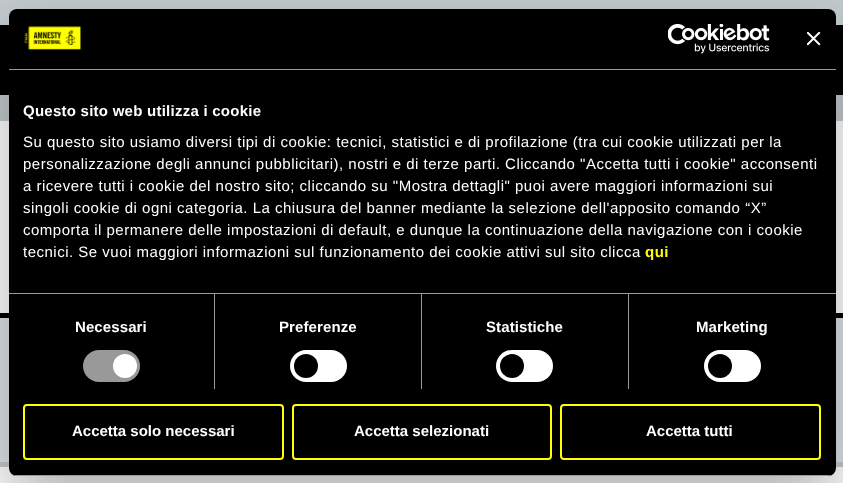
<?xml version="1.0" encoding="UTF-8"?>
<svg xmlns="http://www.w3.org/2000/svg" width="843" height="483">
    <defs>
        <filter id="blur1" x="-50%" y="-200%" width="200%" height="500%"><feGaussianBlur stdDeviation="34"/></filter>
        <clipPath id="clip1"><rect x="9" y="9" width="827" height="467" rx="8"/></clipPath>
    </defs>
    <rect width="100%" height="100%" fill="#FFFFFF"/>
    <rect x="0" y="0" width="843" height="25" fill="#C3CACD"/>
    <rect x="0" y="25" width="843" height="70" fill="#000000"/>
    <rect x="0" y="95" width="843" height="26" fill="#C3CACD"/>
    <rect x="0" y="318" width="843" height="144" fill="#DDE4E7"/>
    <rect x="0" y="313" width="843" height="5" fill="#000000"/>
    <rect x="0" y="462" width="843" height="5" fill="#C3CACD"/>
    <rect x="9" y="41" width="827" height="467" rx="8" fill="#000000" fill-opacity="0.3" filter="url(#blur1)"/>
    <rect x="9" y="9" width="827" height="467" rx="8" fill="#000000"/>
    <rect x="9" y="69" width="827" height="1" fill="#999999"/>
    <image x="24" y="26" width="57" height="24" href="img_01.png"/>
    <image x="668" y="24" width="102" height="30" href="img_02.png"/>
    <image x="807" y="32" width="14" height="14" href="img_03.png"/>
    <rect x="9" y="293" width="827" height="1" fill="#999999"/>
    <text x="23" y="116" font-family="Liberation Sans" font-size="15" font-weight="700" letter-spacing="0.25" fill="#FFFFFF">Questo sito web utilizza i cookie</text>
    <text font-family="Liberation Sans" font-size="15" letter-spacing="0.5" fill="#FFFFFF">
        <tspan x="23" y="147">Su questo sito usiamo diversi tipi di cookie: tecnici, statistici e di profilazione (tra cui cookie utilizzati per la</tspan>
        <tspan x="23" y="169">personalizzazione degli annunci pubblicitari), nostri e di terze parti. Cliccando "Accetta tutti i cookie" acconsenti</tspan>
        <tspan x="23" y="191">a ricevere tutti i cookie del nostro sito; cliccando su "Mostra dettagli" puoi avere maggiori informazioni sui</tspan>
        <tspan x="23" y="213">singoli cookie di ogni categoria. La chiusura del banner mediante la selezione dell'apposito comando “X”</tspan>
        <tspan x="23" y="235">comporta il permanere delle impostazioni di default, e dunque la continuazione della navigazione con i cookie</tspan>
        <tspan x="23" y="257">tecnici. Se vuoi maggiori informazioni sul funzionamento dei cookie attivi sul sito clicca</tspan>
    </text>
    <text x="645" y="257" font-family="Liberation Sans" font-size="15" font-weight="700" letter-spacing="0.5" fill="#FFFF00">qui</text>
    <rect x="214" y="294" width="1" height="95" fill="#999999"/>
    <text x="75" y="332" font-family="Liberation Sans" font-size="15" font-weight="700" letter-spacing="0.1" fill="#FFFFFF">Necessari</text>
    <rect x="83" y="350" width="57" height="32" rx="16" fill="#999999"/>
    <circle cx="125" cy="366" r="12" fill="#FFFFFF"/>
    <rect x="421" y="294" width="1" height="95" fill="#999999"/>
    <text x="279" y="332" font-family="Liberation Sans" font-size="15" font-weight="700" letter-spacing="0.1" fill="#FFFFFF">Preferenze</text>
    <rect x="290" y="350" width="57" height="32" rx="16" fill="#FFFFFF"/>
    <circle cx="306" cy="366" r="12" fill="#000000"/>
    <rect x="628" y="294" width="1" height="95" fill="#999999"/>
    <text x="486" y="332" font-family="Liberation Sans" font-size="15" font-weight="700" letter-spacing="0.1" fill="#FFFFFF">Statistiche</text>
    <rect x="496" y="350" width="57" height="32" rx="16" fill="#FFFFFF"/>
    <circle cx="512" cy="366" r="12" fill="#000000"/>
    <text x="696" y="332" font-family="Liberation Sans" font-size="15" font-weight="700" letter-spacing="0.1" fill="#FFFFFF">Marketing</text>
    <rect x="704" y="350" width="57" height="32" rx="16" fill="#FFFFFF"/>
    <circle cx="720" cy="366" r="12" fill="#000000"/>
    <g clip-path="url(#clip1)">
        <rect x="9" y="475" width="827" height="1" fill="#999999"/>
    </g>
    <rect x="24" y="405" width="259" height="54" rx="3" fill="none" stroke="#FFFF00" stroke-width="2"/>
    <text x="72" y="436" font-family="Liberation Sans" font-size="15" font-weight="700" fill="#FFFFFF">Accetta solo necessari</text>
    <rect x="293" y="405" width="258" height="54" rx="3" fill="none" stroke="#FFFF00" stroke-width="2"/>
    <text x="354" y="436" font-family="Liberation Sans" font-size="15" font-weight="700" fill="#FFFFFF">Accetta selezionati</text>
    <rect x="561" y="405" width="259" height="54" rx="3" fill="none" stroke="#FFFF00" stroke-width="2"/>
    <text x="646" y="436" font-family="Liberation Sans" font-size="15" font-weight="700" fill="#FFFFFF">Accetta tutti</text>
</svg>
